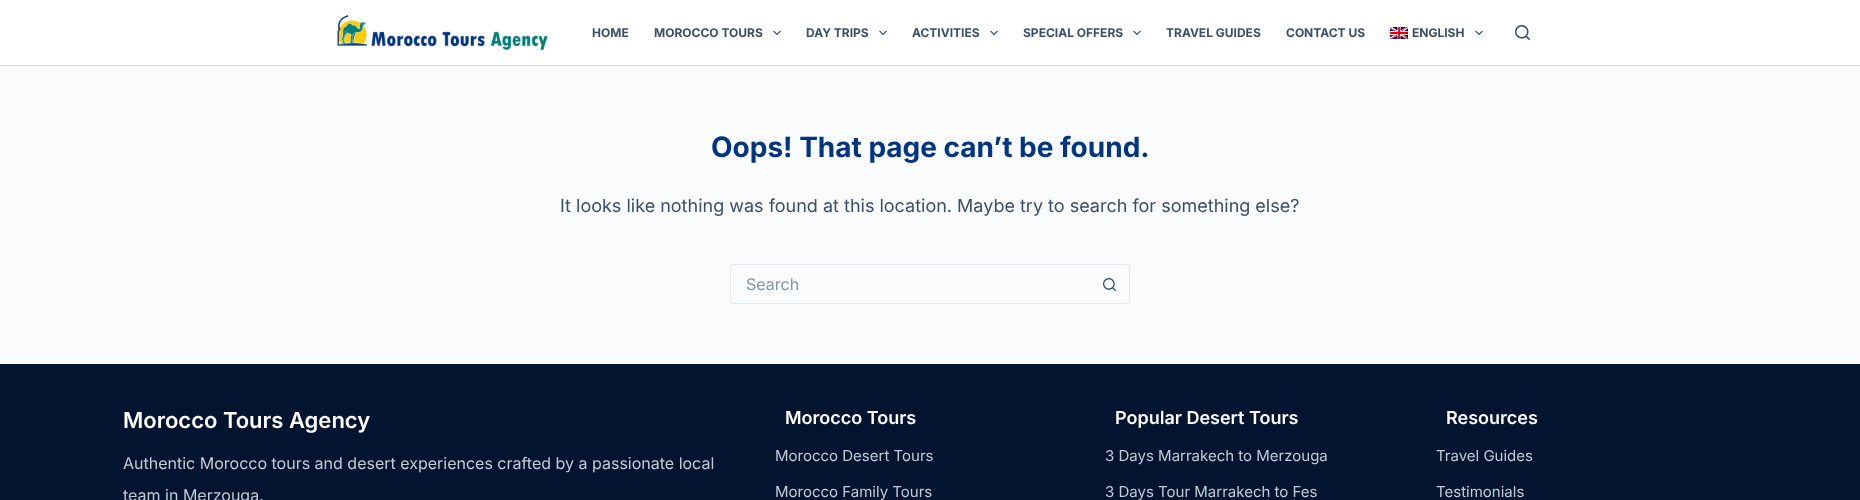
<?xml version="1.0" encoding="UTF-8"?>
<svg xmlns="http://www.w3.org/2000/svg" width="1860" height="500">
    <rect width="100%" height="100%" fill="#FAFBFC"/>
    <rect x="0" y="0" width="1860" height="65" fill="#FFFFFF"/>
    <rect x="0" y="65" width="1860" height="1" fill="#D5D8DC"/>
    <image x="337" y="15" width="211" height="35" href="img_01.png"/>
    <text x="592" y="37" font-family="Inter" font-size="12" font-weight="700" fill="#3A4F66">HOME</text>
    <text x="654" y="37" font-family="Inter" font-size="12" font-weight="700" fill="#3A4F66">MOROCCO TOURS</text>
    <image x="773" y="30" width="8" height="6" href="img_02.png"/>
    <text x="806" y="37" font-family="Inter" font-size="12" font-weight="700" fill="#3A4F66">DAY TRIPS</text>
    <image x="879" y="30" width="8" height="6" href="img_02.png"/>
    <text x="912" y="37" font-family="Inter" font-size="12" font-weight="700" fill="#3A4F66">ACTIVITIES</text>
    <image x="990" y="30" width="8" height="6" href="img_02.png"/>
    <text x="1023" y="37" font-family="Inter" font-size="12" font-weight="700" fill="#3A4F66">SPECIAL OFFERS</text>
    <image x="1133" y="30" width="8" height="6" href="img_02.png"/>
    <text x="1166" y="37" font-family="Inter" font-size="12" font-weight="700" fill="#3A4F66">TRAVEL GUIDES</text>
    <text x="1286" y="37" font-family="Inter" font-size="12" font-weight="700" fill="#3A4F66">CONTACT US</text>
    <image x="1390" y="27" width="18" height="12" href="img_03.png"/>
    <text x="1412" y="37" font-family="Inter" font-size="12" font-weight="700" fill="#3A4F66">ENGLISH</text>
    <image x="1475" y="30" width="8" height="6" href="img_02.png"/>
    <image x="1515" y="25" width="15" height="15" href="img_04.png"/>
    <text x="711" y="157" font-family="Inter" font-size="28" font-weight="700" fill="#003485">Oops! That page can’t be found.</text>
    <text x="560" y="212" font-family="Inter" font-size="18" fill="#3A4F66">It looks like nothing was found at this location. Maybe try to search for something else?</text>
    <path d="M 733 264 H 1090 V 304 H 733 C 731 304 730 303 730 301 V 267 C 730 265 731 264 733 264 Z M 733 265 H 1090 V 303 H 732 C 730 301 731 296 731 295 V 267 L 732 265 Z" fill="#E1E8ED" fill-rule="evenodd"/>
    <text x="746" y="290" font-family="Inter" font-size="16" fill="#8794A2">Search</text>
    <path d="M 1090 264 H 1127 C 1129 264 1130 265 1130 267 V 301 C 1130 303 1129 304 1127 304 H 1090 Z M 1090 265 H 1127 C 1128 265 1129 266 1129 267 V 301 C 1129 302 1128 303 1127 303 H 1090 Z" fill="#E1E8ED" fill-rule="evenodd"/>
    <image x="1103" y="278" width="13" height="13" href="img_05.png"/>
    <rect x="0" y="364" width="1860" height="136" fill="#021430"/>
    <text x="123" y="428" font-family="Inter" font-size="22" font-weight="600" fill="#FFFFFF">Morocco Tours Agency</text>
    <text x="123" y="469" font-family="Inter" font-size="16" fill="#C4CAD6">Authentic Morocco tours and desert experiences crafted by a passionate local</text>
    <text x="123" y="501" font-family="Inter" font-size="16" fill="#C4CAD6">team in Merzouga.</text>
    <text x="785" y="424" font-family="Inter" font-size="18" font-weight="600" fill="#FFFFFF">Morocco Tours</text>
    <text x="775" y="461" font-family="Inter" font-size="15" fill="#C4CAD6">Morocco Desert Tours</text>
    <text x="775" y="497" font-family="Inter" font-size="15" fill="#C4CAD6">Morocco Family Tours</text>
    <text x="1115" y="424" font-family="Inter" font-size="18" font-weight="600" fill="#FFFFFF">Popular Desert Tours</text>
    <text x="1105" y="461" font-family="Inter" font-size="15" fill="#C4CAD6">3 Days Marrakech to Merzouga</text>
    <text x="1105" y="497" font-family="Inter" font-size="15" fill="#C4CAD6">3 Days Tour Marrakech to Fes</text>
    <text x="1446" y="424" font-family="Inter" font-size="18" font-weight="600" fill="#FFFFFF">Resources</text>
    <text x="1436" y="461" font-family="Inter" font-size="15" fill="#C4CAD6">Travel Guides</text>
    <text x="1436" y="497" font-family="Inter" font-size="15" fill="#C4CAD6">Testimonials</text>
</svg>
